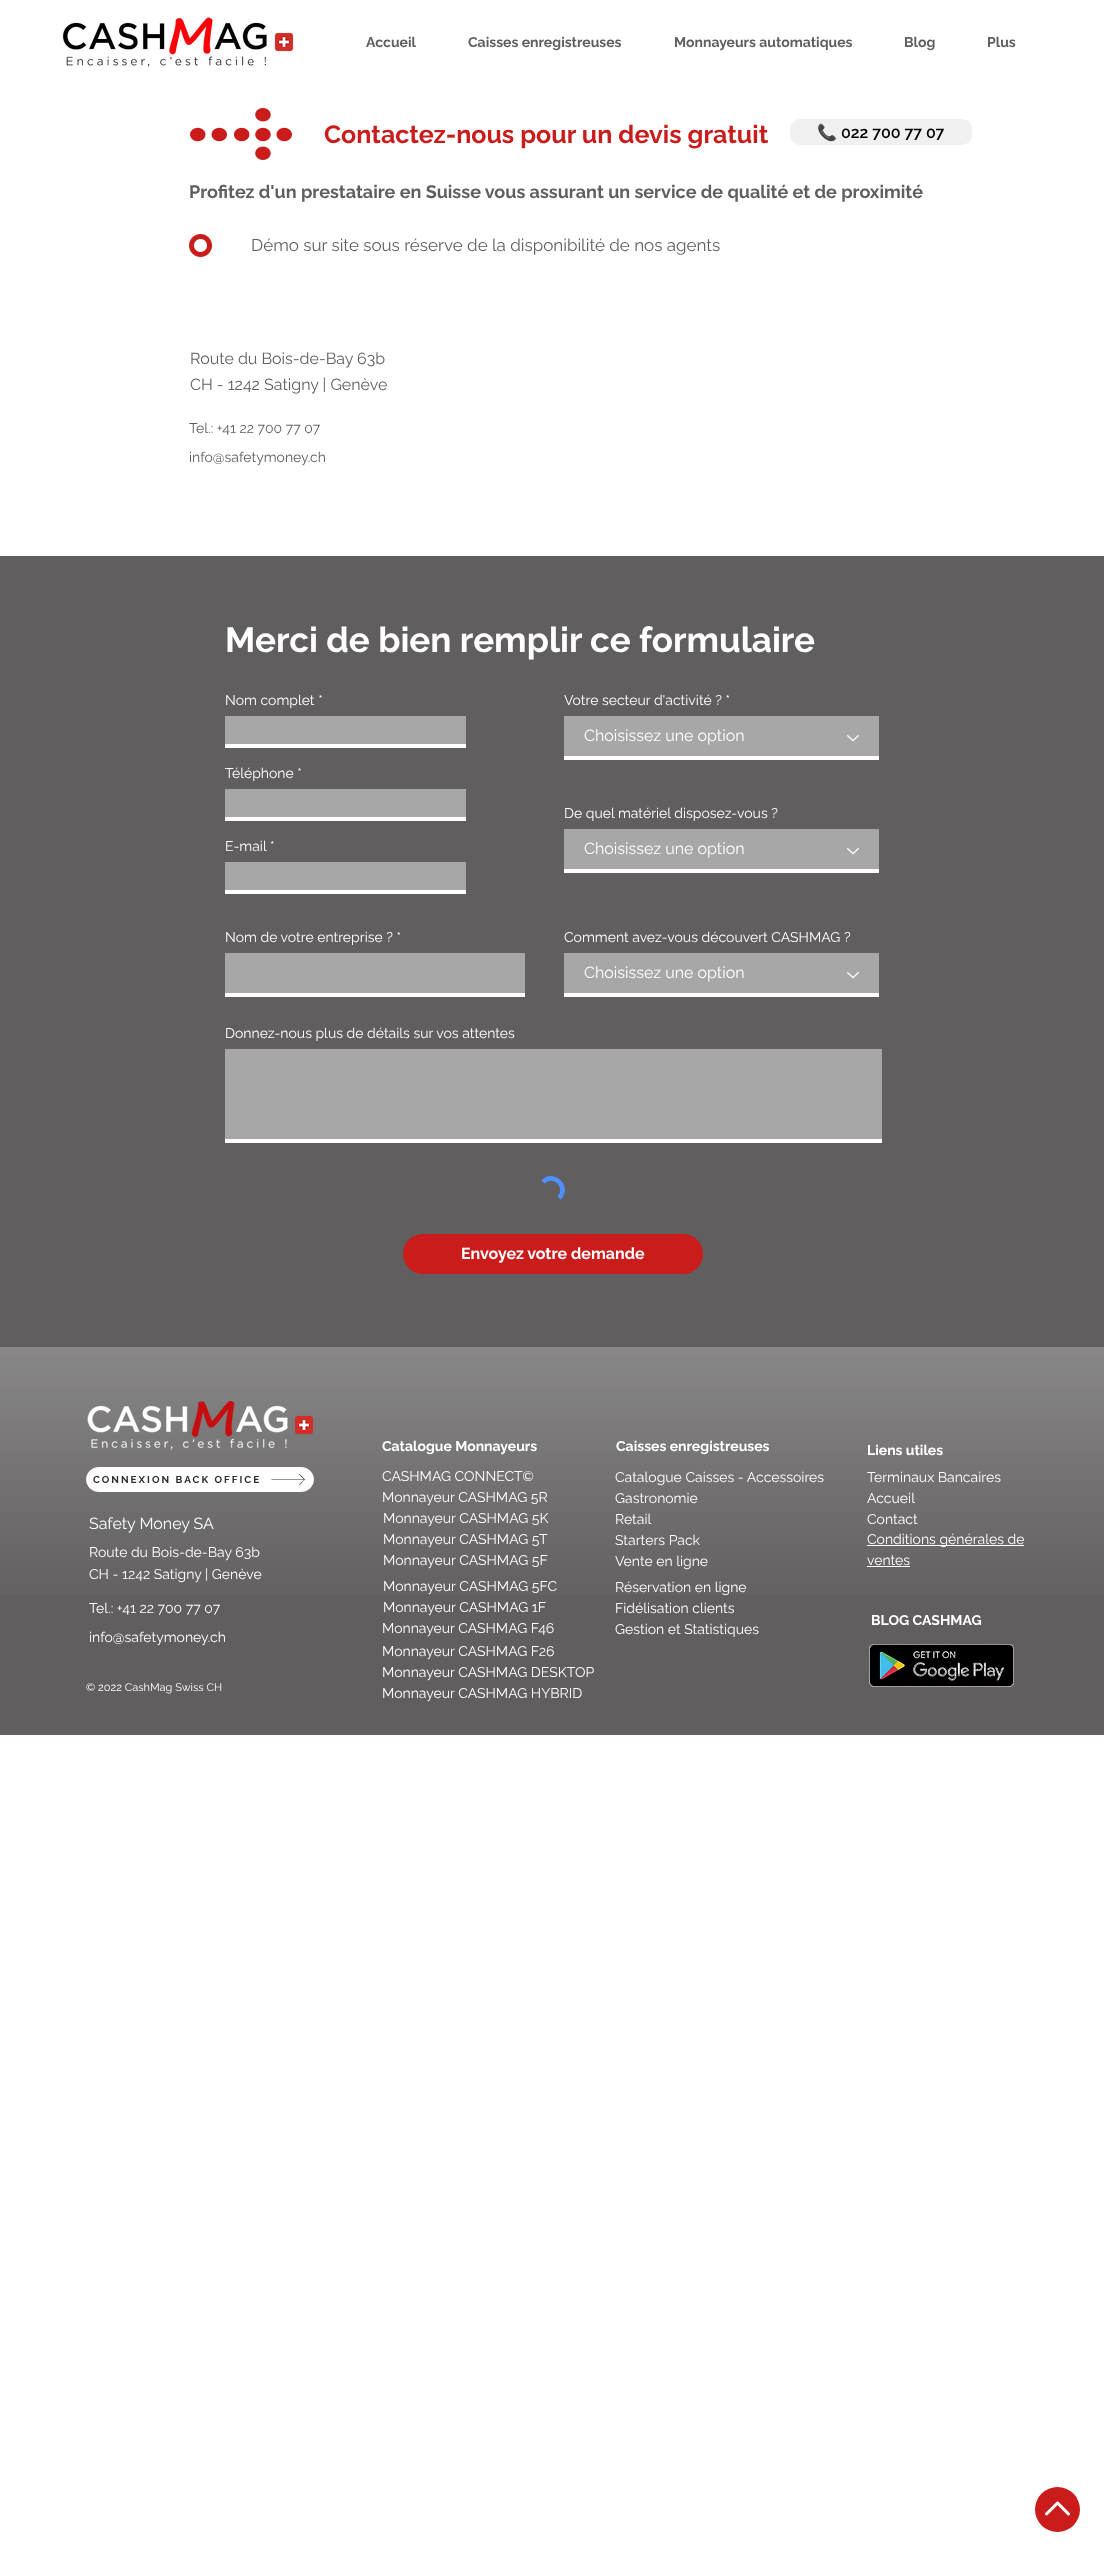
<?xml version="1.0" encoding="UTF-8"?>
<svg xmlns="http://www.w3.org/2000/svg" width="1104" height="2556">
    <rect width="100%" height="100%" fill="#FFFFFF"/>
    <image x="62" y="17" width="205" height="50" href="img_01.png"/>
    <image x="274" y="32" width="20" height="20" href="img_02.png"/>
    <text x="366" y="47" font-family="Raleway" font-size="14" font-weight="700" fill="#605E5E">Accueil</text>
    <text x="468" y="47" font-family="Raleway" font-size="14" font-weight="700" fill="#605E5E">Caisses enregistreuses</text>
    <text x="674" y="47" font-family="Raleway" font-size="14" font-weight="700" fill="#605E5E">Monnayeurs automatiques</text>
    <text x="904" y="47" font-family="Raleway" font-size="14" font-weight="700" fill="#605E5E">Blog</text>
    <text x="987" y="47" font-family="Raleway" font-size="14" font-weight="700" fill="#605E5E">Plus</text>
    <image x="190" y="108" width="102" height="52" href="img_03.png"/>
    <text x="324" y="143" font-family="Raleway" font-size="25" font-weight="700" fill="#CB1C1C">Contactez-nous pour un devis gratuit</text>
    <rect x="790" y="119" width="182" height="26" rx="10" fill="#F0F0F0"/>
    <text x="817" y="138" font-family="Noto Color Emoji" font-size="16" fill="#000000">📞</text>
    <text x="841" y="138" font-family="Raleway" font-size="16" font-weight="600" fill="#000000">022 700 77 07</text>
    <text x="189" y="198" font-family="Raleway" font-size="18" font-weight="700" fill="#605E5E">Profitez d'un prestataire en Suisse vous assurant un service de qualité et de proximité</text>
    <image x="189" y="234" width="23" height="23" href="img_04.png"/>
    <text x="251" y="251" font-family="Raleway" font-size="17" fill="#605E5E">Démo sur site sous réserve de la disponibilité de nos agents</text>
    <text font-family="Raleway" font-size="16" fill="#605E5E">
        <tspan x="190" y="364">Route du Bois-de-Bay 63b</tspan>
        <tspan x="190" y="390">CH - 1242 Satigny | Genève</tspan>
    </text>
    <text x="189" y="433" font-family="Raleway" font-size="14" fill="#605E5E">Tel.: +41 22 700 77 07</text>
    <text x="189" y="462" font-family="Raleway" font-size="14" fill="#605E5E">info@safetymoney.ch</text>
    <rect x="0" y="556" width="1104" height="1179" fill="#605E5E"/>
    <text x="225" y="652" font-family="Raleway" font-size="35" font-weight="700" fill="#FFFFFF">Merci de bien remplir ce formulaire</text>
    <text x="225" y="705" font-family="Raleway" font-size="14" fill="#FFFFFF">Nom complet *</text>
    <rect x="225" y="716" width="241" height="28" fill="#A8A7A7"/>
    <rect x="225" y="744" width="241" height="4" fill="#FFFFFF"/>
    <text x="564" y="705" font-family="Raleway" font-size="14" fill="#FFFFFF">Votre secteur d'activité ? *</text>
    <rect x="564" y="716" width="315" height="40" fill="#A8A7A7"/>
    <rect x="564" y="756" width="315" height="4" fill="#FFFFFF"/>
    <text x="584" y="741" font-family="Raleway" font-size="16" fill="#FFFFFF">Choisissez une option</text>
    <image x="847" y="735" width="12" height="7" href="img_05.png"/>
    <text x="225" y="778" font-family="Raleway" font-size="14" fill="#FFFFFF">Téléphone *</text>
    <rect x="225" y="789" width="241" height="28" fill="#A8A7A7"/>
    <rect x="225" y="817" width="241" height="4" fill="#FFFFFF"/>
    <text x="225" y="851" font-family="Raleway" font-size="14" fill="#FFFFFF">E-mail</text>
    <text x="270" y="851" font-family="Raleway" font-size="14" fill="#FFFFFF">*</text>
    <rect x="225" y="862" width="241" height="28" fill="#A8A7A7"/>
    <rect x="225" y="890" width="241" height="4" fill="#FFFFFF"/>
    <text x="564" y="818" font-family="Raleway" font-size="14" fill="#FFFFFF">De quel matériel disposez-vous ?</text>
    <rect x="564" y="829" width="315" height="40" fill="#A8A7A7"/>
    <rect x="564" y="869" width="315" height="4" fill="#FFFFFF"/>
    <text x="584" y="854" font-family="Raleway" font-size="16" fill="#FFFFFF">Choisissez une option</text>
    <image x="847" y="848" width="12" height="7" href="img_05.png"/>
    <text x="225" y="942" font-family="Raleway" font-size="14" fill="#FFFFFF">Nom de votre entreprise ? *</text>
    <rect x="225" y="953" width="300" height="40" fill="#A8A7A7"/>
    <rect x="225" y="993" width="300" height="4" fill="#FFFFFF"/>
    <text x="564" y="942" font-family="Raleway" font-size="14" fill="#FFFFFF">Comment avez-vous découvert CASHMAG ?</text>
    <rect x="564" y="953" width="315" height="40" fill="#A8A7A7"/>
    <rect x="564" y="993" width="315" height="4" fill="#FFFFFF"/>
    <text x="584" y="978" font-family="Raleway" font-size="16" fill="#FFFFFF">Choisissez une option</text>
    <image x="847" y="972" width="12" height="7" href="img_05.png"/>
    <text x="225" y="1038" font-family="Raleway" font-size="14" fill="#FFFFFF">Donnez-nous plus de détails sur vos attentes</text>
    <rect x="225" y="1049" width="657" height="90" fill="#A8A7A7"/>
    <rect x="225" y="1139" width="657" height="4" fill="#FFFFFF"/>
    <path d="M 543 1182 C 553.5 1171 570 1187.5 559 1198" fill="none" stroke="#4D90FE" stroke-width="4.6"/>
    <rect x="403" y="1234" width="300" height="40" rx="20" fill="#CB1C1C"/>
    <text x="461" y="1259" font-family="Raleway" font-size="16" font-weight="700" fill="#FFFFFF">Envoyez votre demande</text>
    <circle cx="1057.5" cy="2509.5" r="22.5" fill="#CB1C1C"/>
    <image x="1045" y="2501" width="25" height="15" href="img_06.png"/>
    <image x="0" y="1347" width="1104" height="248" href="img_07.png"/>
    <image x="87" y="1401" width="201" height="49" href="img_08.png"/>
    <image x="294" y="1415" width="20" height="20" href="img_09.png"/>
    <text x="382" y="1451" font-family="Raleway" font-size="14" font-weight="700" fill="#FFFFFF">Catalogue Monnayeurs</text>
    <text x="616" y="1451" font-family="Raleway" font-size="14" font-weight="700" fill="#FFFFFF">Caisses enregistreuses</text>
    <text x="867" y="1455" font-family="Raleway" font-size="14" font-weight="700" fill="#FFFFFF">Liens utiles</text>
    <rect x="86.5" y="1467.5" width="227" height="24" rx="12" fill="#FFFFFF" stroke="#FFFFFF"/>
    <text x="93" y="1483" font-family="Raleway" font-size="10" font-weight="700" letter-spacing="2" fill="#2F2E2E">CONNEXION BACK OFFICE</text>
    <path d="M 299.5 1474 L 299 1474.5 L 304 1479.5 H 271.5 V 1480 H 304 L 299 1484.5 L 299.5 1485 L 305 1479.5 Z" fill="#2F2E2E"/>
    <text x="382" y="1481" font-family="Raleway" font-size="14" fill="#FFFFFF">CASHMAG CONNECT©</text>
    <text x="615" y="1482" font-family="Raleway" font-size="14" fill="#FFFFFF">Catalogue Caisses - Accessoires</text>
    <text x="867" y="1482" font-family="Raleway" font-size="14" fill="#FFFFFF">Terminaux Bancaires</text>
    <text x="382" y="1502" font-family="Raleway" font-size="14" fill="#FFFFFF">Monnayeur CASHMAG 5R</text>
    <text x="615" y="1503" font-family="Raleway" font-size="14" fill="#FFFFFF">Gastronomie</text>
    <text x="867" y="1503" font-family="Raleway" font-size="14" fill="#FFFFFF">Accueil</text>
    <text x="89" y="1529" font-family="Raleway" font-size="16" fill="#FFFFFF">Safety Money SA</text>
    <text x="383" y="1523" font-family="Raleway" font-size="14" fill="#FFFFFF">Monnayeur CASHMAG 5K</text>
    <text x="615" y="1524" font-family="Raleway" font-size="14" fill="#FFFFFF">Retail</text>
    <text x="867" y="1524" font-family="Raleway" font-size="14" fill="#FFFFFF">Contact</text>
    <text x="383" y="1544" font-family="Raleway" font-size="14" fill="#FFFFFF">Monnayeur CASHMAG 5T</text>
    <text x="615" y="1545" font-family="Raleway" font-size="14" fill="#FFFFFF">Starters Pack</text>
    <text font-family="Raleway" font-size="14" fill="#FFFFFF">
        <tspan x="89" y="1557">Route du Bois-de-Bay 63b</tspan>
        <tspan x="89" y="1579">CH - 1242 Satigny | Genève</tspan>
    </text>
    <text x="383" y="1565" font-family="Raleway" font-size="14" fill="#FFFFFF">Monnayeur CASHMAG 5F</text>
    <text x="615" y="1566" font-family="Raleway" font-size="14" fill="#FFFFFF">Vente en ligne</text>
    <text x="383" y="1591" font-family="Raleway" font-size="14" fill="#FFFFFF">Monnayeur CASHMAG 5FC</text>
    <text x="615" y="1592" font-family="Raleway" font-size="14" fill="#FFFFFF">Réservation en ligne</text>
    <text x="89" y="1613" font-family="Raleway" font-size="14" fill="#FFFFFF">Tel.: +41 22 700 77 07</text>
    <text x="383" y="1612" font-family="Raleway" font-size="14" fill="#FFFFFF">Monnayeur CASHMAG 1F</text>
    <text x="615" y="1613" font-family="Raleway" font-size="14" fill="#FFFFFF">Fidélisation clients</text>
    <text x="871" y="1625" font-family="Raleway" font-size="14" font-weight="700" fill="#FFFFFF">BLOG CASHMAG</text>
    <text x="89" y="1642" font-family="Raleway" font-size="14" fill="#FFFFFF">info@safetymoney.ch</text>
    <text x="382" y="1633" font-family="Raleway" font-size="14" fill="#FFFFFF">Monnayeur CASHMAG F46</text>
    <text x="615" y="1634" font-family="Raleway" font-size="14" fill="#FFFFFF">Gestion et Statistiques</text>
    <text x="382" y="1656" font-family="Raleway" font-size="14" fill="#FFFFFF">Monnayeur CASHMAG F26</text>
    <image x="869" y="1644" width="145" height="43" href="img_10.png"/>
    <text x="382" y="1677" font-family="Raleway" font-size="14" fill="#FFFFFF">Monnayeur CASHMAG DESKTOP</text>
    <text x="86" y="1691" font-family="Raleway" font-size="11" fill="#FFFFFF">© 2022 CashMag Swiss CH</text>
    <text x="382" y="1698" font-family="Raleway" font-size="14" fill="#FFFFFF">Monnayeur CASHMAG HYBRID</text>
    <rect x="867" y="1545" width="157" height="1" fill="#FFFFFF"/>
    <text font-family="Raleway" font-size="14" fill="#FFFFFF">
        <tspan x="867" y="1544">Conditions générales de</tspan>
        <tspan x="867" y="1565">ventes</tspan>
    </text>
    <rect x="867" y="1566" width="43" height="1" fill="#FFFFFF"/>
</svg>
